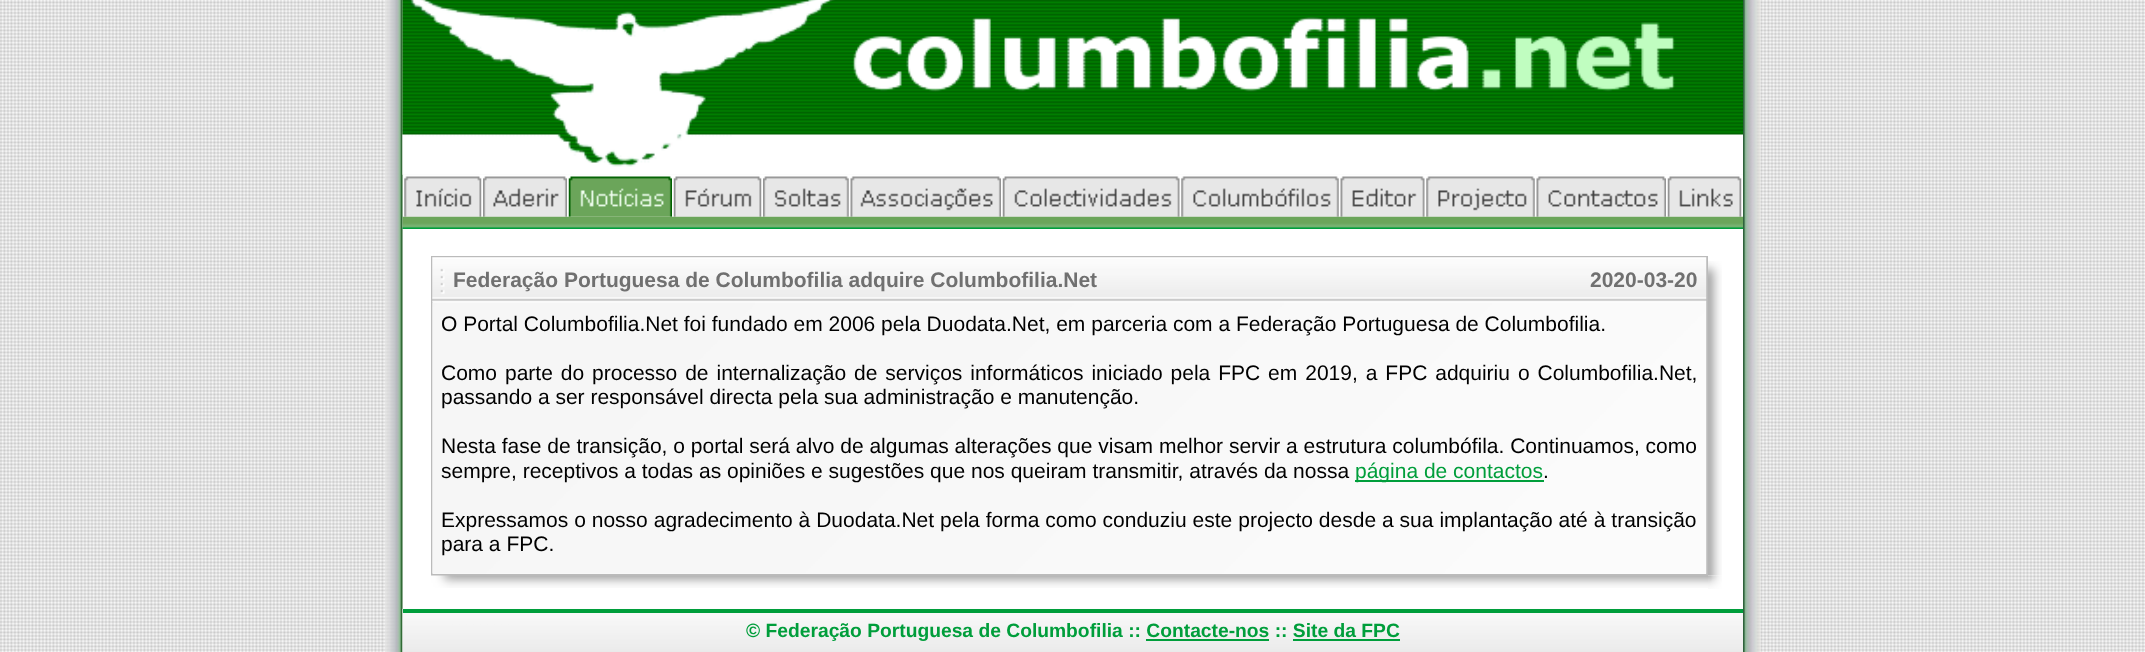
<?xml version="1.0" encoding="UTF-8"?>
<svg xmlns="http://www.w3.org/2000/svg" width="2145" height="652">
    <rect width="100%" height="100%" fill="#F0F0F0"/>
    <image x="0" y="0" width="385" height="652" href="img_01.png"/>
    <image x="385" y="0" width="18" height="652" href="img_02.png"/>
    <image x="402" y="0" width="1341" height="175" href="img_03.png"/>
    <rect x="403" y="175" width="1340" height="42" fill="#FFFFFF"/>
    <image x="404" y="176" width="78" height="41" href="img_04.png"/>
    <image x="483" y="176" width="84" height="41" href="img_05.png"/>
    <image x="568" y="176" width="104" height="41" href="img_06.png"/>
    <image x="673" y="176" width="89" height="41" href="img_07.png"/>
    <image x="763" y="176" width="86" height="41" href="img_08.png"/>
    <image x="850" y="176" width="151" height="41" href="img_09.png"/>
    <image x="1002" y="176" width="178" height="41" href="img_10.png"/>
    <image x="1181" y="176" width="158" height="41" href="img_11.png"/>
    <image x="1340" y="176" width="85" height="41" href="img_12.png"/>
    <image x="1426" y="176" width="109" height="41" href="img_13.png"/>
    <image x="1536" y="176" width="130" height="41" href="img_14.png"/>
    <image x="1667" y="176" width="75" height="41" href="img_15.png"/>
    <image x="402" y="216" width="1341" height="13" href="img_16.png"/>
    <rect x="403" y="229" width="1340" height="380" fill="#FFFFFF"/>
    <rect x="432" y="257" width="1275" height="318" fill="none" stroke="#BBBBBB" stroke-width="2"/>
    <image x="432" y="257" width="1275" height="46" href="img_17.png"/>
    <text x="453" y="287" font-family="Liberation Sans" font-size="21" font-weight="700" fill="#707070">Federação Portuguesa de Columbofilia adquire Columbofilia.Net</text>
    <text x="1590" y="287" font-family="Liberation Sans" font-size="21" font-weight="700" fill="#707070">2020-03-20</text>
    <image x="432" y="302" width="1275" height="272" href="img_18.png"/>
    <text x="441" y="331" font-family="Liberation Sans" font-size="21" fill="#000000">O Portal Columbofilia.Net foi fundado em 2006 pela Duodata.Net, em parceria com a Federação Portuguesa de Columbofilia.</text>
    <text font-family="Liberation Sans" font-size="21" fill="#000000">
        <tspan x="441" y="380" word-spacing="2.1">Como parte do processo de internalização de serviços informáticos iniciado pela FPC em 2019, a FPC adquiriu o Columbofilia.Net,</tspan>
        <tspan x="441" y="404">passando a ser responsável directa pela sua administração e manutenção.</tspan>
    </text>
    <text font-family="Liberation Sans" font-size="21" fill="#000000">
        <tspan x="441" y="453">Nesta fase de transição, o portal será alvo de algumas alterações que visam melhor servir a estrutura columbófila. Continuamos, como</tspan>
        <tspan x="441" y="478">sempre, receptivos a todas as opiniões e sugestões que nos queiram transmitir, através da nossa</tspan>
    </text>
    <rect x="1355" y="480" width="189" height="2" fill="#009E3B"/>
    <text x="1355" y="478" font-family="Liberation Sans" font-size="21" fill="#009E3B">página de contactos</text>
    <text x="1543" y="478" font-family="Liberation Sans" font-size="21" fill="#000000">.</text>
    <text font-family="Liberation Sans" font-size="21" fill="#000000">
        <tspan x="441" y="527" word-spacing="0.1">Expressamos o nosso agradecimento à Duodata.Net pela forma como conduziu este projecto desde a sua implantação até à transição</tspan>
        <tspan x="441" y="551">para a FPC.</tspan>
    </text>
    <image x="1708" y="261" width="14" height="315" href="img_19.png"/>
    <image x="431" y="575" width="1277" height="13" href="img_20.png"/>
    <image x="1708" y="575" width="14" height="14" href="img_21.png"/>
    <image x="402" y="608" width="1341" height="44" href="img_22.png"/>
    <rect x="403" y="609" width="1340" height="4" fill="#009E3B"/>
    <text x="746" y="637" font-family="Liberation Sans" font-size="19.25" font-weight="700" fill="#009E3B">© Federação Portuguesa de Columbofilia :: Contacte-nos :: Site da FPC</text>
    <rect x="1146" y="639" width="123" height="2" fill="#009E3B"/>
    <rect x="1293" y="639" width="107" height="2" fill="#009E3B"/>
    <image x="1743" y="0" width="18" height="652" href="img_23.png"/>
    <image x="1760" y="0" width="385" height="652" href="img_24.png"/>
</svg>
